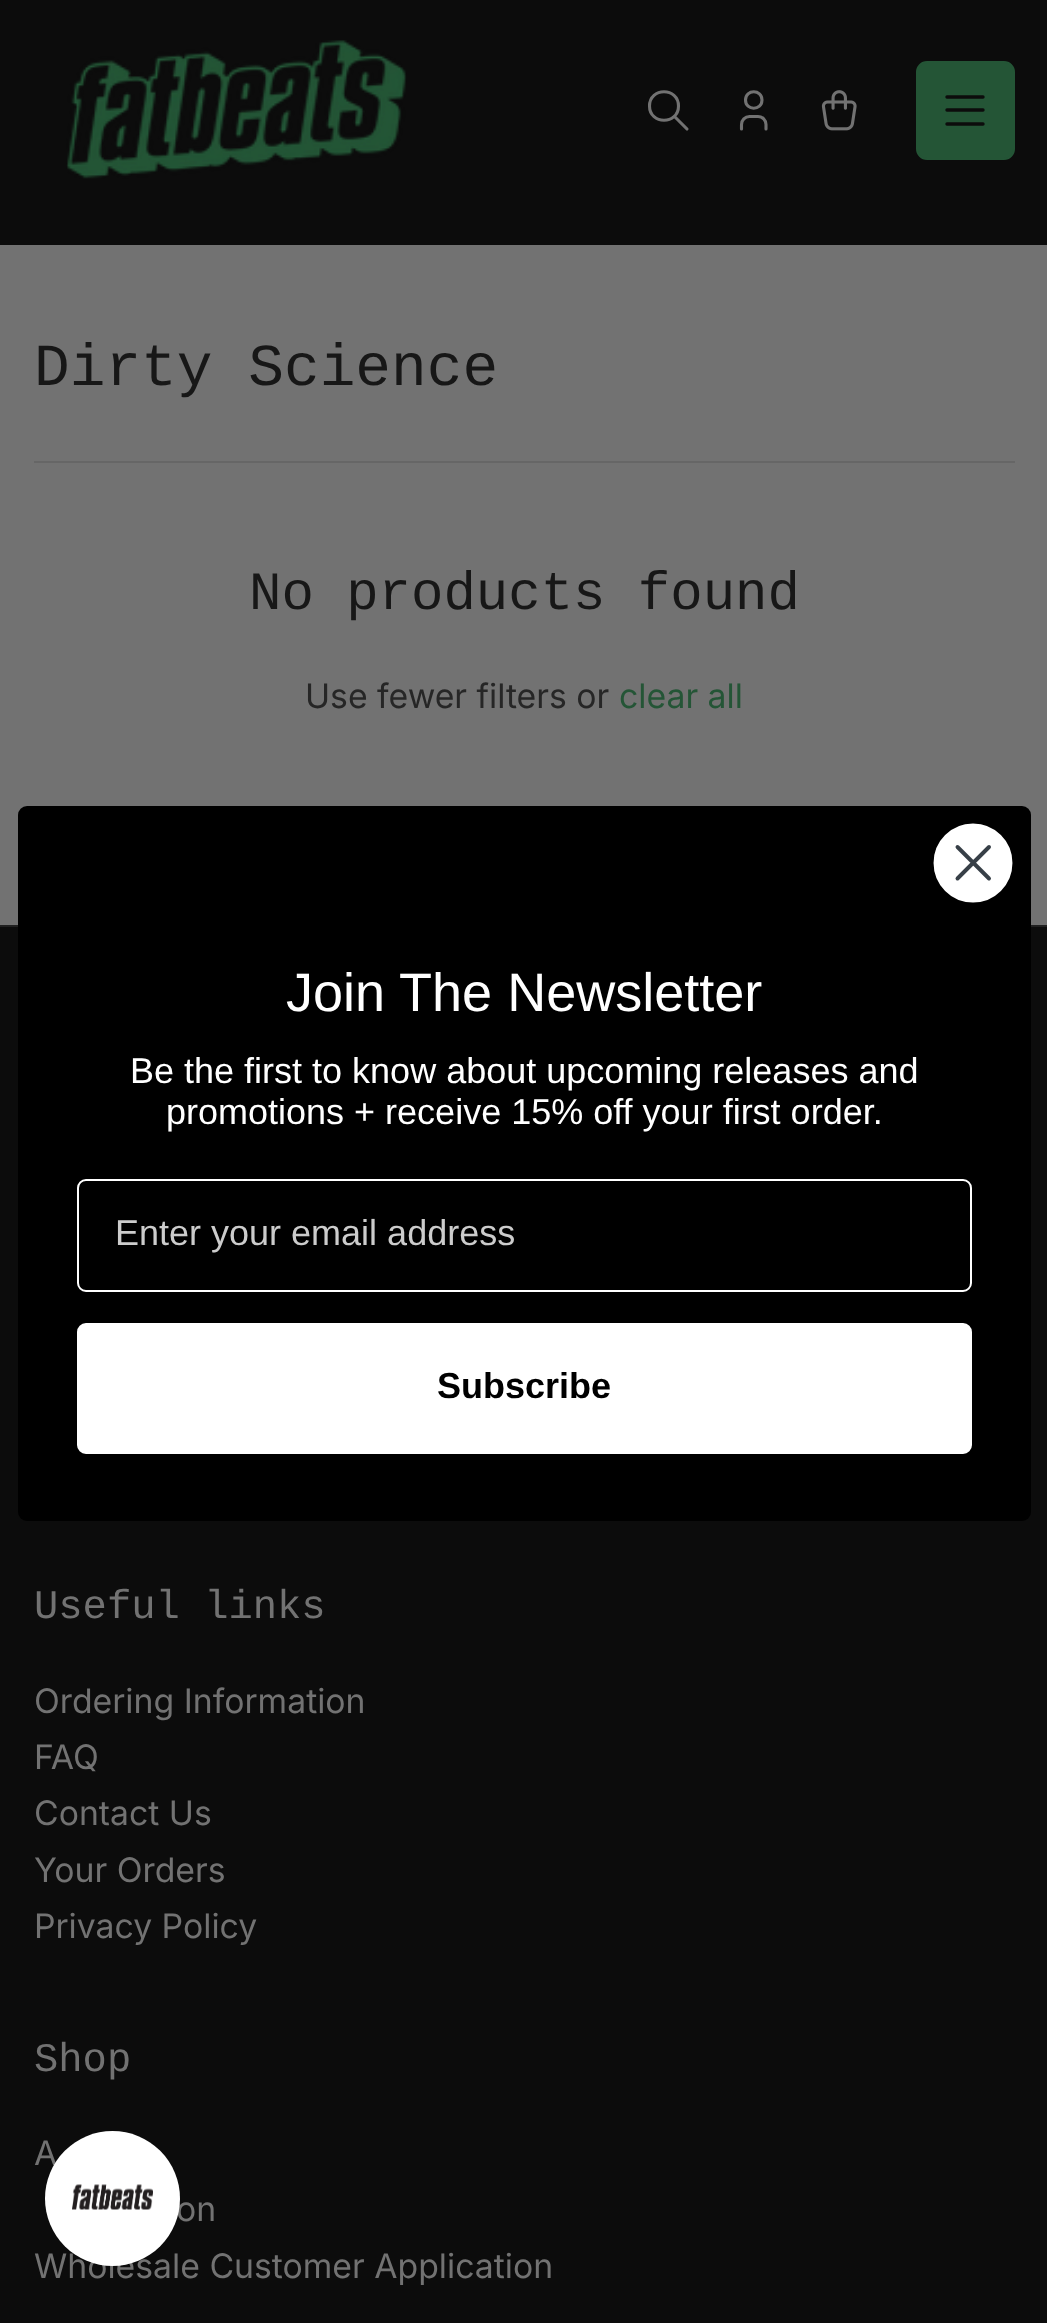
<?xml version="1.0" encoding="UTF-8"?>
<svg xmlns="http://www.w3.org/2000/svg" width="1047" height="2323">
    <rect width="100%" height="100%" fill="#727272"/>
    <rect x="0" y="0" width="1047" height="245" fill="#0C0C0C"/>
    <image x="66" y="40" width="341" height="139" href="img_01.png"/>
    <path d="M 649.5 106 C 649.5 125 678.5 125 678.5 106 C 678.5 87 649.5 87 649.5 106 M 687 129 L 674.5 116.5" fill="none" stroke="#727272" stroke-width="3.1" stroke-linecap="round" stroke-linejoin="round"/>
    <path d="M 745.5 100 C 745.5 111 762 111 762 100 C 762 89 745.5 89 745.5 100 M 741.5 129 V 124.5 C 741.5 120 745 116.5 749.5 116.5 H 758 C 762.5 116.5 766 120 766 124.5 V 129" fill="none" stroke="#727272" stroke-width="3.1" stroke-linecap="round" stroke-linejoin="round"/>
    <image x="821" y="90" width="36" height="41" href="img_02.png"/>
    <rect x="917" y="62" width="97" height="97" rx="10" fill="#245536" stroke="#245536" stroke-width="2"/>
    <path d="M 947 97 H 983 M 947 110 H 983 M 947 124 H 983" fill="none" stroke="#0C0C0C" stroke-width="3.4" stroke-linecap="round" stroke-linejoin="round"/>
    <rect x="34" y="461" width="981" height="2" fill="#666666"/>
    <text x="34" y="385" font-family="Liberation Mono" font-size="59.5" fill="#171717">Dirty Science</text>
    <text x="249" y="609" font-family="Liberation Mono" font-size="54" fill="#171717">No products found</text>
    <text x="305" y="708" font-family="Inter" font-size="33.75" fill="#262626">Use fewer filters or</text>
    <text x="619" y="708" font-family="Inter" font-size="33.75" fill="#245536">clear all</text>
    <rect x="0" y="927" width="1047" height="1396" fill="#0C0C0C"/>
    <rect x="0" y="925" width="1047" height="2" fill="#202020"/>
    <rect x="18" y="806" width="1013" height="715" rx="9" fill="#000000"/>
    <circle cx="973" cy="863" r="37.5" fill="#FFFFFF" stroke="#FFFFFF" stroke-width="3.9"/>
    <path d="M 957.5 847 L 989 878.5 M 957.5 878.5 L 989 847 Z" fill="none" stroke="#373F47" stroke-width="3.9" stroke-linecap="round" stroke-linejoin="round"/>
    <text x="286" y="1011" font-family="Liberation Sans" font-size="54" fill="#FFFFFF">Join The Newsletter</text>
    <text x="130" y="1083" font-family="Liberation Sans" font-size="36" fill="#FFFFFF">Be the first to know about upcoming releases and</text>
    <text x="166" y="1124" font-family="Liberation Sans" font-size="36" fill="#FFFFFF">promotions + receive 15% off your first order.</text>
    <rect x="78" y="1180" width="893" height="111" rx="8" fill="none" stroke="#FFFFFF" stroke-width="2"/>
    <text x="115" y="1245" font-family="Liberation Sans" font-size="36" fill="#CCCCCC">Enter your email address</text>
    <rect x="79.5" y="1325.5" width="890" height="126" rx="6.5" fill="#FFFFFF" stroke="#FFFFFF" stroke-width="5"/>
    <text x="437" y="1398" font-family="Liberation Sans" font-size="36" font-weight="700" fill="#000000">Subscribe</text>
    <text x="34" y="1618" font-family="Liberation Mono" font-size="40.5" fill="#727272">Useful links</text>
    <text font-family="Inter" font-size="33.75" fill="#727272">
        <tspan x="34" y="1713">Ordering Information</tspan>
        <tspan x="34" y="1769">FAQ</tspan>
        <tspan x="34" y="1825">Contact Us</tspan>
        <tspan x="34" y="1882">Your Orders</tspan>
        <tspan x="34" y="1938">Privacy Policy</tspan>
    </text>
    <text x="34" y="2071" font-family="Liberation Mono" font-size="40.5" fill="#727272">Shop</text>
    <text x="34" y="2165" font-family="Inter" font-size="33.75" fill="#727272">A</text>
    <text x="176" y="2221" font-family="Inter" font-size="33.75" fill="#727272">on</text>
    <text x="34" y="2278" font-family="Inter" font-size="33.75" fill="#727272">Wholesale Customer Application</text>
    <circle cx="112.5" cy="2198.5" r="67.5" fill="#FFFFFF"/>
    <image x="72" y="2184" width="81" height="26" href="img_03.png"/>
</svg>
